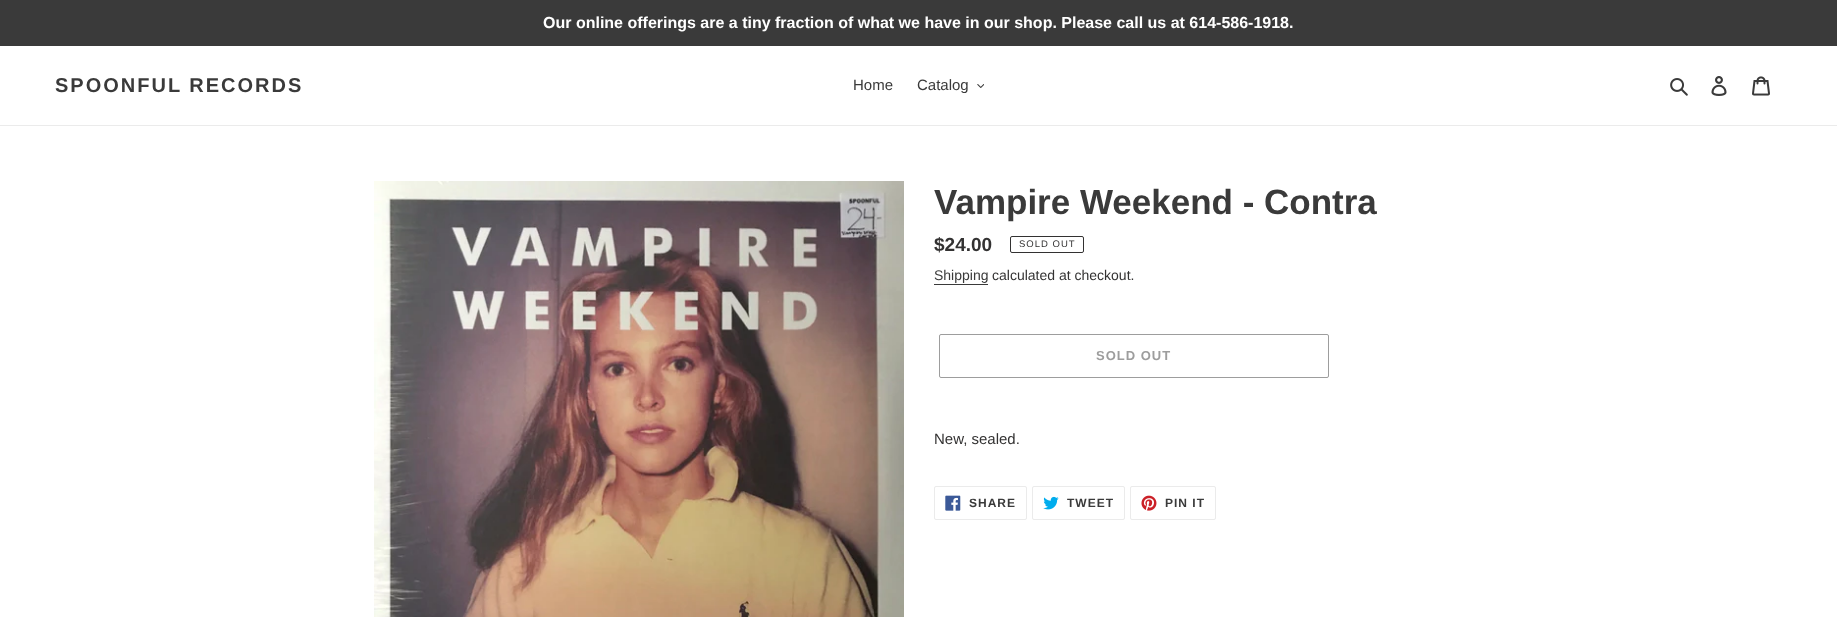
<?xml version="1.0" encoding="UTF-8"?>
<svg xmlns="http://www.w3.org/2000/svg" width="1837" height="617">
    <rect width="100%" height="100%" fill="#FFFFFF"/>
    <rect x="0" y="0" width="1837" height="46" fill="#3A3A3A"/>
    <text x="543" y="28" font-family="Liberation Sans" font-size="16" font-weight="700" fill="#FFFFFF">Our online offerings are a tiny fraction of what we have in our shop. Please call us at 614-586-1918.</text>
    <rect x="0" y="125" width="1837" height="1" fill="#EBEBEB"/>
    <text x="55" y="92" font-family="Liberation Sans" font-size="20" font-weight="700" letter-spacing="2" fill="#3A3A3A">SPOONFUL RECORDS</text>
    <text x="853" y="90" font-family="Liberation Sans" font-size="15" fill="#3A3A3A">Home</text>
    <text x="917" y="90" font-family="Liberation Sans" font-size="15" fill="#3A3A3A">Catalog</text>
    <image x="977" y="84" width="7" height="4" href="img_01.png"/>
    <image x="1670" y="78" width="18" height="18" href="img_02.png"/>
    <image x="1711" y="76" width="16" height="20" href="img_03.png"/>
    <image x="1752" y="76" width="18" height="20" href="img_04.png"/>
    <image x="374" y="181" width="530" height="436" href="img_05.png"/>
    <text x="934" y="214" font-family="Liberation Sans" font-size="35" font-weight="700" fill="#3A3A3A">Vampire Weekend - Contra</text>
    <text x="934" y="251" font-family="Liberation Sans" font-size="19" font-weight="700" fill="#333232">$24.00</text>
    <rect x="1010.5" y="236.5" width="73" height="16" rx="1.5" fill="none" stroke="#333232"/>
    <text x="1019" y="247" font-family="Liberation Sans" font-size="9.5" letter-spacing="1" fill="#333232">SOLD OUT</text>
    <text x="934" y="280" font-family="Liberation Sans" font-size="14" fill="#3A3A3A">Shipping</text>
    <rect x="934" y="284" width="54" height="1" fill="#3A3A3A"/>
    <text x="992" y="280" font-family="Liberation Sans" font-size="14" fill="#333232">calculated at checkout.</text>
    <rect x="939.5" y="334.5" width="389" height="43" rx="1.5" fill="none" stroke="#9D9D9D"/>
    <text x="1096" y="360" font-family="Liberation Sans" font-size="13" font-weight="700" letter-spacing="1" fill="#9D9D9D">SOLD OUT</text>
    <text x="934" y="444" font-family="Liberation Sans" font-size="15" fill="#333232">New, sealed.</text>
    <rect x="934.5" y="486.5" width="92" height="33" rx="1.5" fill="none" stroke="#EBEBEB"/>
    <image x="945" y="495" width="16" height="16" href="img_06.png"/>
    <text x="969" y="507" font-family="Liberation Sans" font-size="12" font-weight="700" letter-spacing="1" fill="#3A3A3A">SHARE</text>
    <rect x="1032.5" y="486.5" width="92" height="33" rx="1.5" fill="none" stroke="#EBEBEB"/>
    <image x="1043" y="496" width="16" height="14" href="img_07.png"/>
    <text x="1067" y="507" font-family="Liberation Sans" font-size="12" font-weight="700" letter-spacing="1" fill="#3A3A3A">TWEET</text>
    <rect x="1130.5" y="486.5" width="85" height="33" rx="1.5" fill="none" stroke="#EBEBEB"/>
    <image x="1141" y="495" width="16" height="16" href="img_08.png"/>
    <text x="1165" y="507" font-family="Liberation Sans" font-size="12" font-weight="700" letter-spacing="1" fill="#3A3A3A">PIN IT</text>
</svg>
